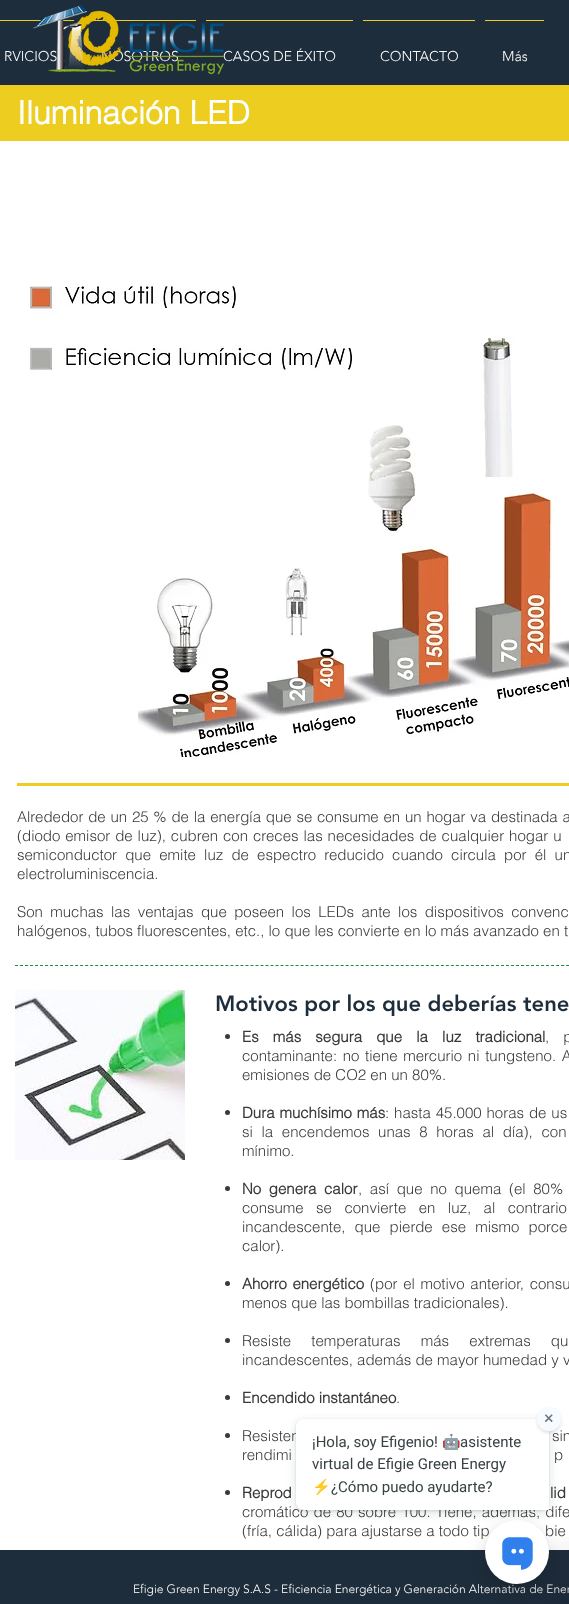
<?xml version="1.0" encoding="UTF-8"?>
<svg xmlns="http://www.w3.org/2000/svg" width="569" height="1604">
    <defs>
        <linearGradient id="g1" gradientUnits="userSpaceOnUse" x1="469" y1="1504" x2="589" y2="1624"><stop offset="0.5" stop-color="#0E0E29" stop-opacity="0"/><stop offset="1" stop-color="#0E0E29" stop-opacity="0.2"/></linearGradient>
        <filter id="blur1" x="-50%" y="-200%" width="200%" height="500%"><feGaussianBlur stdDeviation="10"/></filter>
        <filter id="blur2" x="-50%" y="-200%" width="200%" height="500%"><feGaussianBlur stdDeviation="2.5"/></filter>
        <filter id="blur3" x="-50%" y="-200%" width="200%" height="500%"><feGaussianBlur stdDeviation="5"/></filter>
        <filter id="blur4" x="-50%" y="-200%" width="200%" height="500%"><feGaussianBlur stdDeviation="1"/></filter>
        <filter id="blur5" x="-50%" y="-200%" width="200%" height="500%"><feGaussianBlur stdDeviation="1.5"/></filter>
    </defs>
    <rect width="100%" height="100%" fill="#FFFFFF"/>
    <rect x="0" y="0" width="569" height="85" fill="#1E2D3B"/>
    <rect x="0" y="20" width="74" height="1" fill="#EDCD1F"/>
    <text x="4" y="61" font-family="'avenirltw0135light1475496'" font-size="14" font-weight="300" fill="#FFFFFF">RVICIOS</text>
    <rect x="84" y="20" width="112" height="1" fill="#EDCD1F"/>
    <text x="101" y="61" font-family="'avenirltw0135light1475496'" font-size="14" font-weight="300" fill="#FFFFFF">NOSOTROS</text>
    <rect x="206" y="20" width="147" height="1" fill="#EDCD1F"/>
    <text x="223" y="61" font-family="'avenirltw0135light1475496'" font-size="14" font-weight="300" fill="#FFFFFF">CASOS DE ÉXITO</text>
    <image x="33" y="5" width="191" height="70" href="img_01.png"/>
    <rect x="363" y="20" width="112" height="1" fill="#EDCD1F"/>
    <text x="380" y="61" font-family="'avenirltw0135light1475496'" font-size="14" font-weight="300" fill="#FFFFFF">CONTACTO</text>
    <rect x="485" y="20" width="59" height="1" fill="#EDCD1F"/>
    <text x="502" y="61" font-family="'avenirltw0135light1475496'" font-size="14" font-weight="300" fill="#FFFFFF">Más</text>
    <rect x="0" y="85" width="569" height="56" fill="#EDCD1F"/>
    <text x="17" y="124" font-family="helvetica" font-size="32" font-weight="700" fill="#FFFFFF">Iluminación LED</text>
    <image x="28" y="285" width="541" height="472" href="img_02.png"/>
    <rect x="17" y="783" width="552" height="3" fill="#EDCD1F"/>
    <text font-family="helvetica" font-size="15" font-weight="300" fill="#3B3A3A">
        <tspan x="17" y="822" word-spacing="0.6">Alrededor de un 25 % de la energía que se consume en un hogar va destinada a</tspan>
        <tspan x="17" y="841" word-spacing="0.75">(diodo emisor de luz), cubren con creces las necesidades de cualquier hogar u</tspan>
        <tspan x="17" y="860" word-spacing="4">semiconductor que emite luz de espectro reducido cuando circula por él un</tspan>
        <tspan x="17" y="879">electroluminiscencia.</tspan>
    </text>
    <text font-family="helvetica" font-size="15" font-weight="300" fill="#3B3A3A">
        <tspan x="17" y="917" word-spacing="3.25">Son muchas las ventajas que poseen los LEDs ante los dispositivos convenc</tspan>
        <tspan x="17" y="936">halógenos, tubos fluorescentes, etc., lo que les convierte en lo más avanzado en t</tspan>
    </text>
    <path d="M 15 965.5 H 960" fill="none" stroke="#1C8A43" stroke-dasharray="3 2.01"/>
    <image x="15" y="990" width="170" height="170" href="img_03.png"/>
    <text x="215" y="1011" font-family="'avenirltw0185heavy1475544'" font-size="22" font-weight="900" fill="#1E2D3B">Motivos por los que deberías tene</text>
    <circle cx="227.5" cy="1036.5" r="2.5" fill="#3B3A3A"/>
    <text x="242" y="1042" word-spacing="10" font-family="helvetica" font-size="15" font-weight="700" fill="#3B3A3A">Es más segura que la luz tradicional</text>
    <text x="545" y="1042" word-spacing="10" font-family="helvetica" font-size="15" font-weight="300" fill="#3B3A3A">, p</text>
    <text font-family="helvetica" font-size="15" font-weight="300" fill="#3B3A3A">
        <tspan x="242" y="1061" word-spacing="1.5">contaminante: no tiene mercurio ni tungsteno. A</tspan>
        <tspan x="242" y="1080">emisiones de CO2 en un 80%.</tspan>
    </text>
    <circle cx="227.5" cy="1112.5" r="2.5" fill="#3B3A3A"/>
    <text x="242" y="1118" word-spacing="0.75" font-family="helvetica" font-size="15" font-weight="700" fill="#3B3A3A">Dura muchísimo más</text>
    <text x="385" y="1118" word-spacing="0.75" font-family="helvetica" font-size="15" font-weight="300" fill="#3B3A3A">: hasta 45.000 horas de us</text>
    <text font-family="helvetica" font-size="15" font-weight="300" fill="#3B3A3A">
        <tspan x="242" y="1137" word-spacing="4.5">si la encendemos unas 8 horas al día), con</tspan>
        <tspan x="242" y="1156">mínimo.</tspan>
    </text>
    <circle cx="227.5" cy="1188.5" r="2.5" fill="#3B3A3A"/>
    <text x="242" y="1194" word-spacing="3.5" font-family="helvetica" font-size="15" font-weight="700" fill="#3B3A3A">No genera calor</text>
    <text x="358" y="1194" word-spacing="3.5" font-family="helvetica" font-size="15" font-weight="300" fill="#3B3A3A">, así que no quema (el 80%</text>
    <text font-family="helvetica" font-size="15" font-weight="300" fill="#3B3A3A">
        <tspan x="242" y="1213" word-spacing="8.25">consume se convierte en luz, al contrario</tspan>
        <tspan x="242" y="1232" word-spacing="5">incandescente, que pierde ese mismo porce</tspan>
        <tspan x="242" y="1251">calor).</tspan>
    </text>
    <circle cx="227.5" cy="1283.5" r="2.5" fill="#3B3A3A"/>
    <text x="242" y="1289" word-spacing="1.5" font-family="helvetica" font-size="15" font-weight="700" fill="#3B3A3A">Ahorro energético</text>
    <text x="370" y="1289" word-spacing="1.5" font-family="helvetica" font-size="15" font-weight="300" fill="#3B3A3A">(por el motivo anterior, consu</text>
    <text x="242" y="1308" font-family="helvetica" font-size="15" font-weight="300" fill="#3B3A3A">menos que las bombillas tradicionales).</text>
    <circle cx="227.5" cy="1340.5" r="2.5" fill="#3B3A3A"/>
    <text font-family="helvetica" font-size="15" font-weight="300" fill="#3B3A3A">
        <tspan x="242" y="1346" word-spacing="16">Resiste temperaturas más extremas qu</tspan>
        <tspan x="242" y="1365">incandescentes, además de mayor humedad y v</tspan>
    </text>
    <circle cx="227.5" cy="1397.5" r="2.5" fill="#3B3A3A"/>
    <text x="242" y="1403" font-family="helvetica" font-size="15" font-weight="700" fill="#3B3A3A">Encendido instantáneo</text>
    <text x="396" y="1403" font-family="helvetica" font-size="15" font-weight="300" fill="#3B3A3A">.</text>
    <circle cx="227.5" cy="1435.5" r="2.5" fill="#3B3A3A"/>
    <text x="242" y="1441" word-spacing="4" font-family="helvetica" font-size="15" font-weight="300" fill="#3B3A3A">Resisten</text>
    <text x="552" y="1441" word-spacing="4" font-family="helvetica" font-size="15" font-weight="300" fill="#3B3A3A">sin</text>
    <text x="242" y="1460" font-family="helvetica" font-size="15" font-weight="300" fill="#3B3A3A">rendimi</text>
    <text x="554" y="1460" font-family="helvetica" font-size="15" font-weight="300" fill="#3B3A3A">p</text>
    <circle cx="227.5" cy="1492.5" r="2.5" fill="#3B3A3A"/>
    <text x="242" y="1498" word-spacing="6" font-family="helvetica" font-size="15" font-weight="700" fill="#3B3A3A">Reprod</text>
    <text x="550" y="1498" word-spacing="6" font-family="helvetica" font-size="15" font-weight="700" fill="#3B3A3A">lid</text>
    <text font-family="helvetica" font-size="15" font-weight="300" fill="#3B3A3A">
        <tspan x="242" y="1517" word-spacing="1">cromático de 80 sobre 100. Tiene, además, dife</tspan>
        <tspan x="242" y="1536">(fría, cálida) para ajustarse a todo tip</tspan>
    </text>
    <text x="545" y="1536" font-family="helvetica" font-size="15" font-weight="300" fill="#3B3A3A">bie</text>
    <rect x="0" y="1550" width="569" height="54" fill="#1E2D3B"/>
    <text x="133" y="1593" font-family="'avenirltw0135light1475496'" font-size="12" font-weight="300" fill="#FFFFFF">Efigie Green Energy S.A.S - Eficiencia Energética y Generación Alternativa de Ener</text>
    <rect x="509" y="1537" width="60" height="67" fill="url(#g1)"/>
    <rect x="485" y="1528" width="64" height="64" rx="32" fill="#000000" fill-opacity="0.16" filter="url(#blur1)"/>
    <rect x="488" y="1524" width="58" height="58" rx="29" fill="#000000" fill-opacity="0.32" filter="url(#blur2)"/>
    <circle cx="517" cy="1552" r="32" fill="#FFFFFF"/>
    <rect x="296" y="1422" width="253" height="91" rx="8" fill="#384244" fill-opacity="0.15" filter="url(#blur3)"/>
    <rect x="296" y="1420" width="253" height="91" rx="8" fill="#384244" fill-opacity="0.15" filter="url(#blur4)"/>
    <path d="M 304 1419 H 541 C 545.5 1419 549 1422.5 549 1427 V 1509 C 549 1509.5 548.5 1510 548 1510 H 304 C 299.5 1510 296 1506.5 296 1502 V 1427 C 296 1422.5 299.5 1419 304 1419 Z" fill="#FFFFFF"/>
    <rect x="537" y="1409" width="24" height="24" rx="12" fill="#384244" fill-opacity="0.15" filter="url(#blur5)"/>
    <circle cx="549" cy="1419" r="12" fill="#F7FAFF"/>
    <text x="544" y="1424" font-family="Roboto" font-size="18" fill="#6C757D">×</text>
    <text x="312" y="1447" font-family="Roboto" font-size="15" fill="#384244">¡Hola, soy Efigenio!</text>
    <text x="442" y="1447" font-family="Noto Color Emoji" font-size="15" fill="#384244">🤖</text>
    <text x="460" y="1447" font-family="Roboto" font-size="15" fill="#384244">asistente</text>
    <text x="312" y="1469" font-family="Roboto" font-size="15" fill="#384244">virtual de Efigie Green Energy</text>
    <text x="312" y="1492" font-family="Noto Color Emoji" font-size="15" fill="#384244">⚡</text>
    <text x="331" y="1492" font-family="Roboto" font-size="15" fill="#384244">¿Cómo puedo ayudarte?</text>
    <image x="502" y="1537" width="31" height="33" href="img_04.png"/>
</svg>
